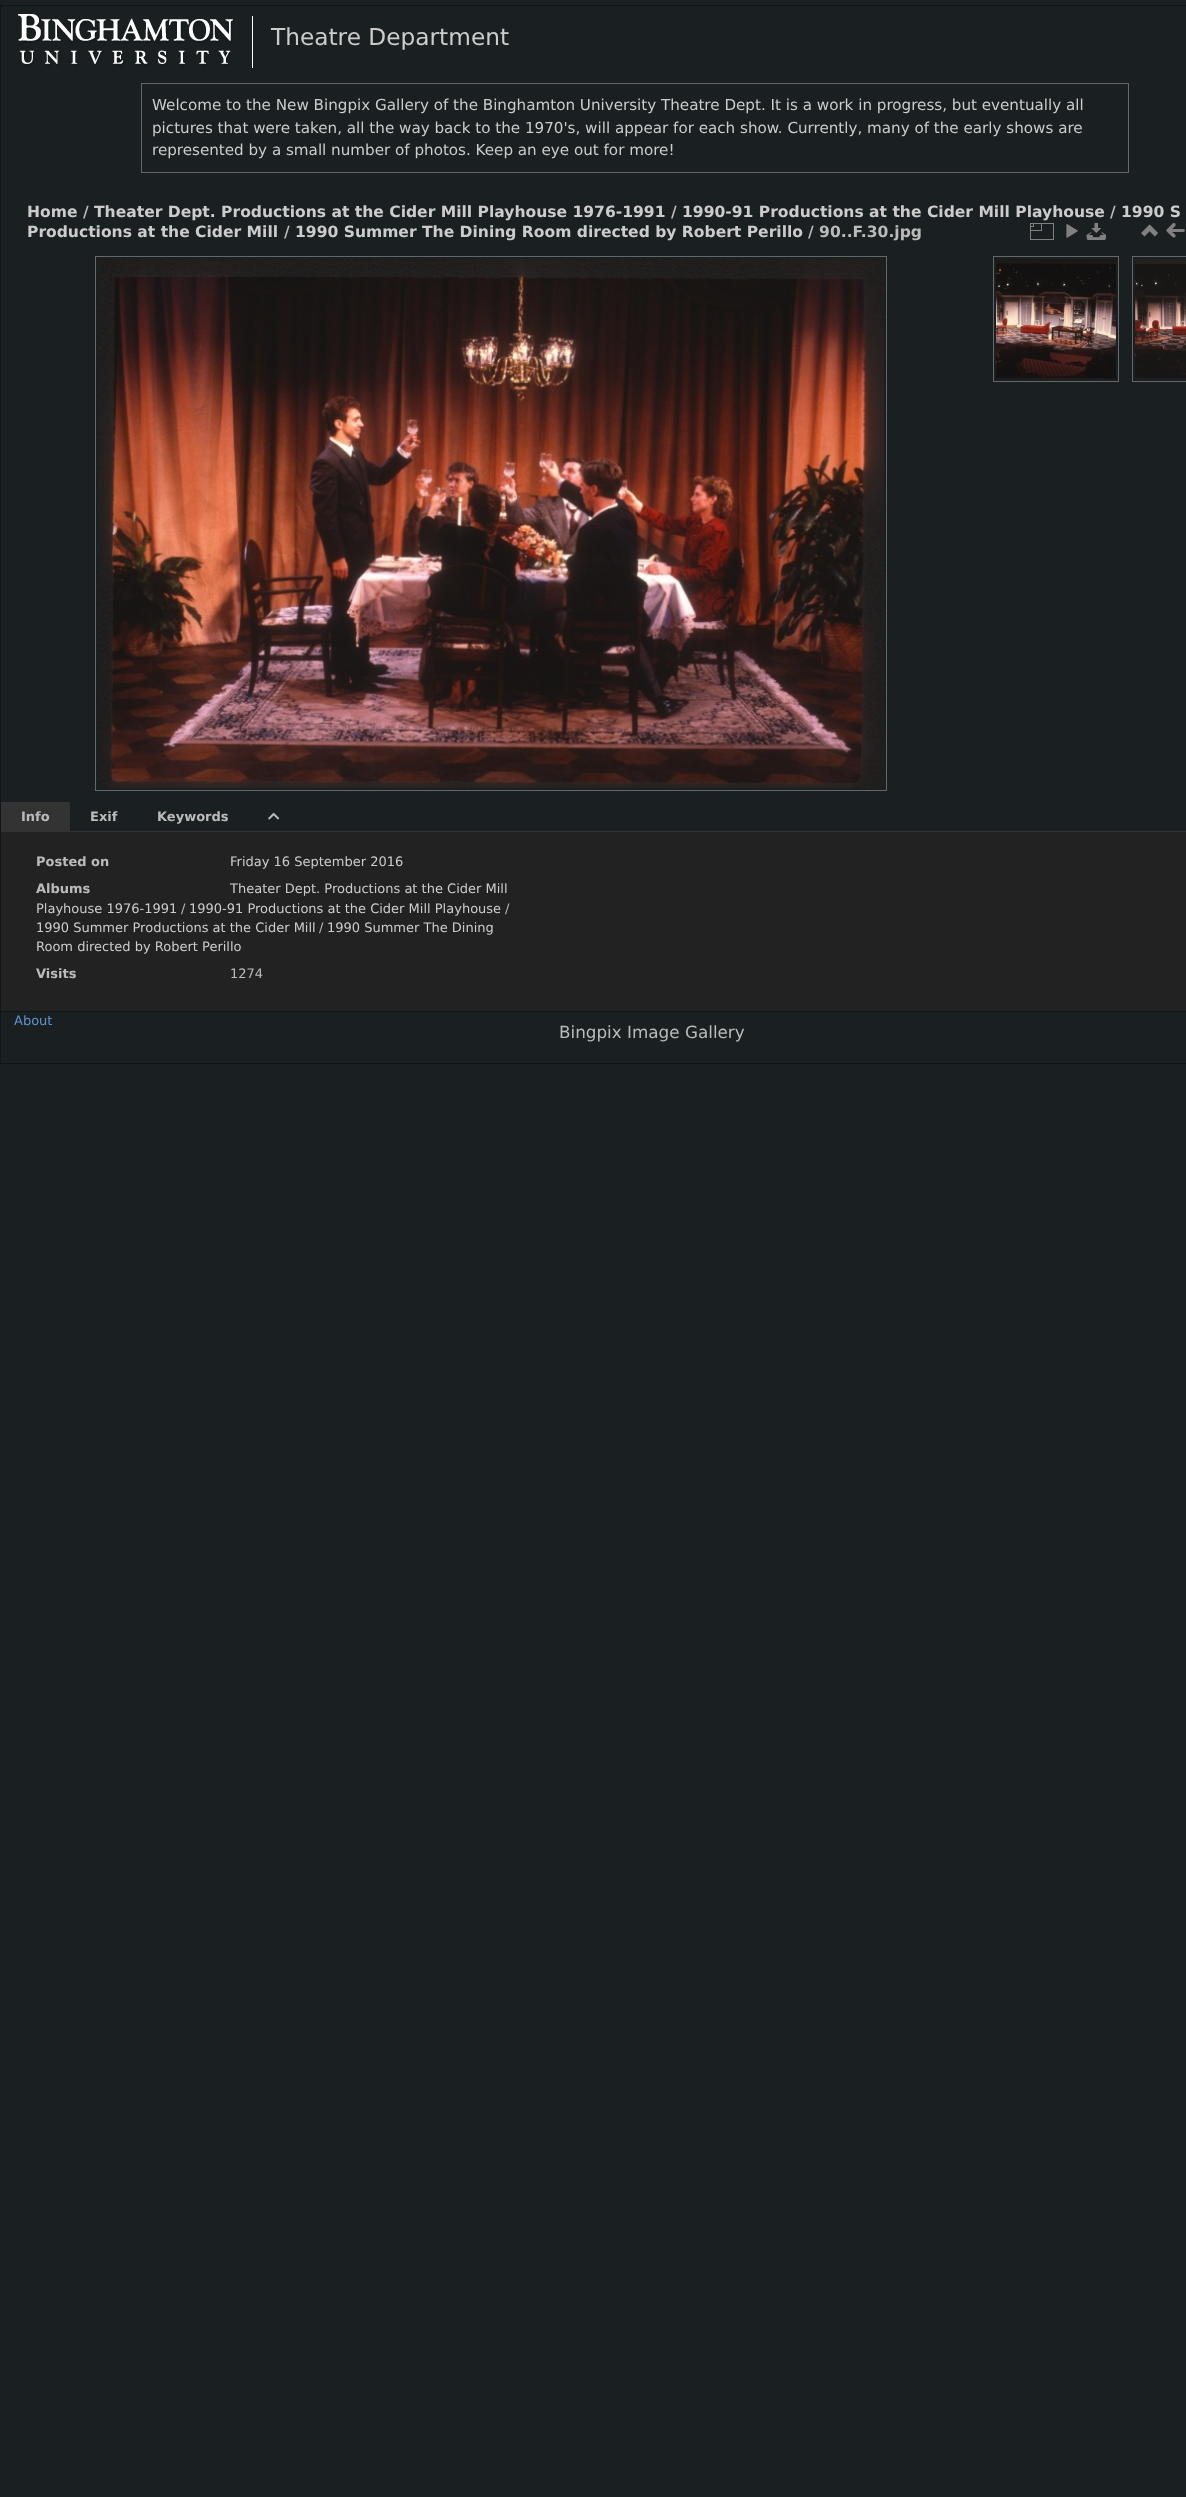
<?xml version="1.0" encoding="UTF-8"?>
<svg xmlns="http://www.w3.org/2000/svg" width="1186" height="2497">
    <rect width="100%" height="100%" fill="#1A2022"/>
    <rect x="0.5" y="5.5" width="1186" height="1058" fill="none" stroke="#10151C"/>
    <image x="18" y="14" width="235" height="54" href="img_01.png"/>
    <text x="271" y="45" font-family="DejaVu Sans" font-size="23.25" fill="#CCCCCC">Theatre Department</text>
    <rect x="141.5" y="83.5" width="987" height="89" fill="none" stroke="#666666"/>
    <text font-family="DejaVu Sans" font-size="15.15" fill="#CCCCCC">
        <tspan x="152" y="110">Welcome to the New Bingpix Gallery of the Binghamton University Theatre Dept. It is a work in progress, but eventually all</tspan>
        <tspan x="152" y="133">pictures that were taken, all the way back to the 1970's, will appear for each show. Currently, many of the early shows are</tspan>
        <tspan x="152" y="155">represented by a small number of photos. Keep an eye out for more!</tspan>
    </text>
    <text x="27" y="217" font-family="DejaVu Sans" font-size="15.55" font-weight="700" fill="#CCCCCC">Home</text>
    <text x="83" y="217" font-family="DejaVu Sans" font-size="15.55" font-weight="700" fill="#BBBBBB">/</text>
    <text x="94" y="217" font-family="DejaVu Sans" font-size="15.55" font-weight="700" fill="#CCCCCC">Theater Dept. Productions at the Cider Mill Playhouse 1976-1991</text>
    <text x="671" y="217" font-family="DejaVu Sans" font-size="15.55" font-weight="700" fill="#BBBBBB">/</text>
    <text x="682" y="217" font-family="DejaVu Sans" font-size="15.55" font-weight="700" fill="#CCCCCC">1990-91 Productions at the Cider Mill Playhouse</text>
    <text x="1110" y="217" font-family="DejaVu Sans" font-size="15.55" font-weight="700" fill="#BBBBBB">/</text>
    <text x="1121" y="217" font-family="DejaVu Sans" font-size="15.55" font-weight="700" fill="#CCCCCC">1990 S</text>
    <text x="27" y="237" font-family="DejaVu Sans" font-size="15.55" font-weight="700" fill="#CCCCCC">Productions at the Cider Mill</text>
    <text x="284" y="237" font-family="DejaVu Sans" font-size="15.55" font-weight="700" fill="#BBBBBB">/</text>
    <text x="295" y="237" font-family="DejaVu Sans" font-size="15.55" font-weight="700" fill="#CCCCCC">1990 Summer The Dining Room directed by Robert Perillo</text>
    <text x="808" y="237" font-family="DejaVu Sans" font-size="15.55" font-weight="700" fill="#BBBBBB">/ 90..F.30.jpg</text>
    <image x="1030" y="223" width="24" height="17" href="img_02.png"/>
    <image x="1066" y="224" width="12" height="14" href="img_03.png"/>
    <image x="1086" y="223" width="21" height="17" href="img_04.png"/>
    <image x="1141" y="224" width="17" height="13" href="img_05.png"/>
    <image x="1166" y="223" width="19" height="15" href="img_06.png"/>
    <rect x="95.5" y="256.5" width="791" height="534" fill="none" stroke="#666666"/>
    <rect x="993.5" y="256.5" width="125" height="125" fill="none" stroke="#666666"/>
    <image x="996" y="259" width="120" height="120" href="img_07.png"/>
    <rect x="1132.5" y="256.5" width="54" height="125" fill="none" stroke="#666666"/>
    <image x="1135" y="259" width="51" height="120" href="img_08.png"/>
    <image x="98" y="259" width="786" height="529" href="img_09.png"/>
    <rect x="70" y="831" width="1116" height="1" fill="#333333"/>
    <rect x="1" y="802" width="69" height="30" fill="#333333"/>
    <text x="21" y="821" font-family="DejaVu Sans" font-size="13" font-weight="700" fill="#BBBBBB">Info</text>
    <text x="90" y="821" font-family="DejaVu Sans" font-size="13" font-weight="700" fill="#BBBBBB">Exif</text>
    <text x="157" y="821" font-family="DejaVu Sans" font-size="13" font-weight="700" fill="#BBBBBB">Keywords</text>
    <image x="268" y="812" width="12" height="8" href="img_10.png"/>
    <rect x="1" y="832" width="1185" height="179" fill="#222222"/>
    <text x="36" y="866" font-family="DejaVu Sans" font-size="13" font-weight="700" fill="#BBBBBB">Posted on</text>
    <text x="230" y="866" font-family="DejaVu Sans" font-size="13" fill="#CCCCCC">Friday 16 September 2016</text>
    <text x="36" y="893" font-family="DejaVu Sans" font-size="13" font-weight="700" fill="#BBBBBB">Albums</text>
    <text x="230" y="893" font-family="DejaVu Sans" font-size="13" fill="#CCCCCC">Theater Dept. Productions at the Cider Mill</text>
    <text x="36" y="913" font-family="DejaVu Sans" font-size="13" fill="#CCCCCC">Playhouse 1976-1991</text>
    <text x="181" y="913" font-family="DejaVu Sans" font-size="13" fill="#BBBBBB">/</text>
    <text x="189" y="913" font-family="DejaVu Sans" font-size="13" fill="#CCCCCC">1990-91 Productions at the Cider Mill Playhouse</text>
    <text x="505" y="913" font-family="DejaVu Sans" font-size="13" fill="#BBBBBB">/</text>
    <text x="36" y="932" font-family="DejaVu Sans" font-size="13" fill="#CCCCCC">1990 Summer Productions at the Cider Mill</text>
    <text x="319" y="932" font-family="DejaVu Sans" font-size="13" fill="#BBBBBB">/</text>
    <text x="327" y="932" font-family="DejaVu Sans" font-size="13" fill="#CCCCCC">1990 Summer The Dining</text>
    <text x="36" y="951" font-family="DejaVu Sans" font-size="13" fill="#CCCCCC">Room directed by Robert Perillo</text>
    <text x="36" y="978" font-family="DejaVu Sans" font-size="13" font-weight="700" fill="#BBBBBB">Visits</text>
    <text x="230" y="978" font-family="DejaVu Sans" font-size="13" fill="#BBBBBB">1274</text>
    <rect x="1" y="1011" width="1185" height="1" fill="#10151C"/>
    <text x="14" y="1025" font-family="DejaVu Sans" font-size="13" fill="#6392CF">About</text>
    <text x="559" y="1038" font-family="DejaVu Sans" font-size="16.8" fill="#BBBBBB">Bingpix Image Gallery</text>
</svg>
